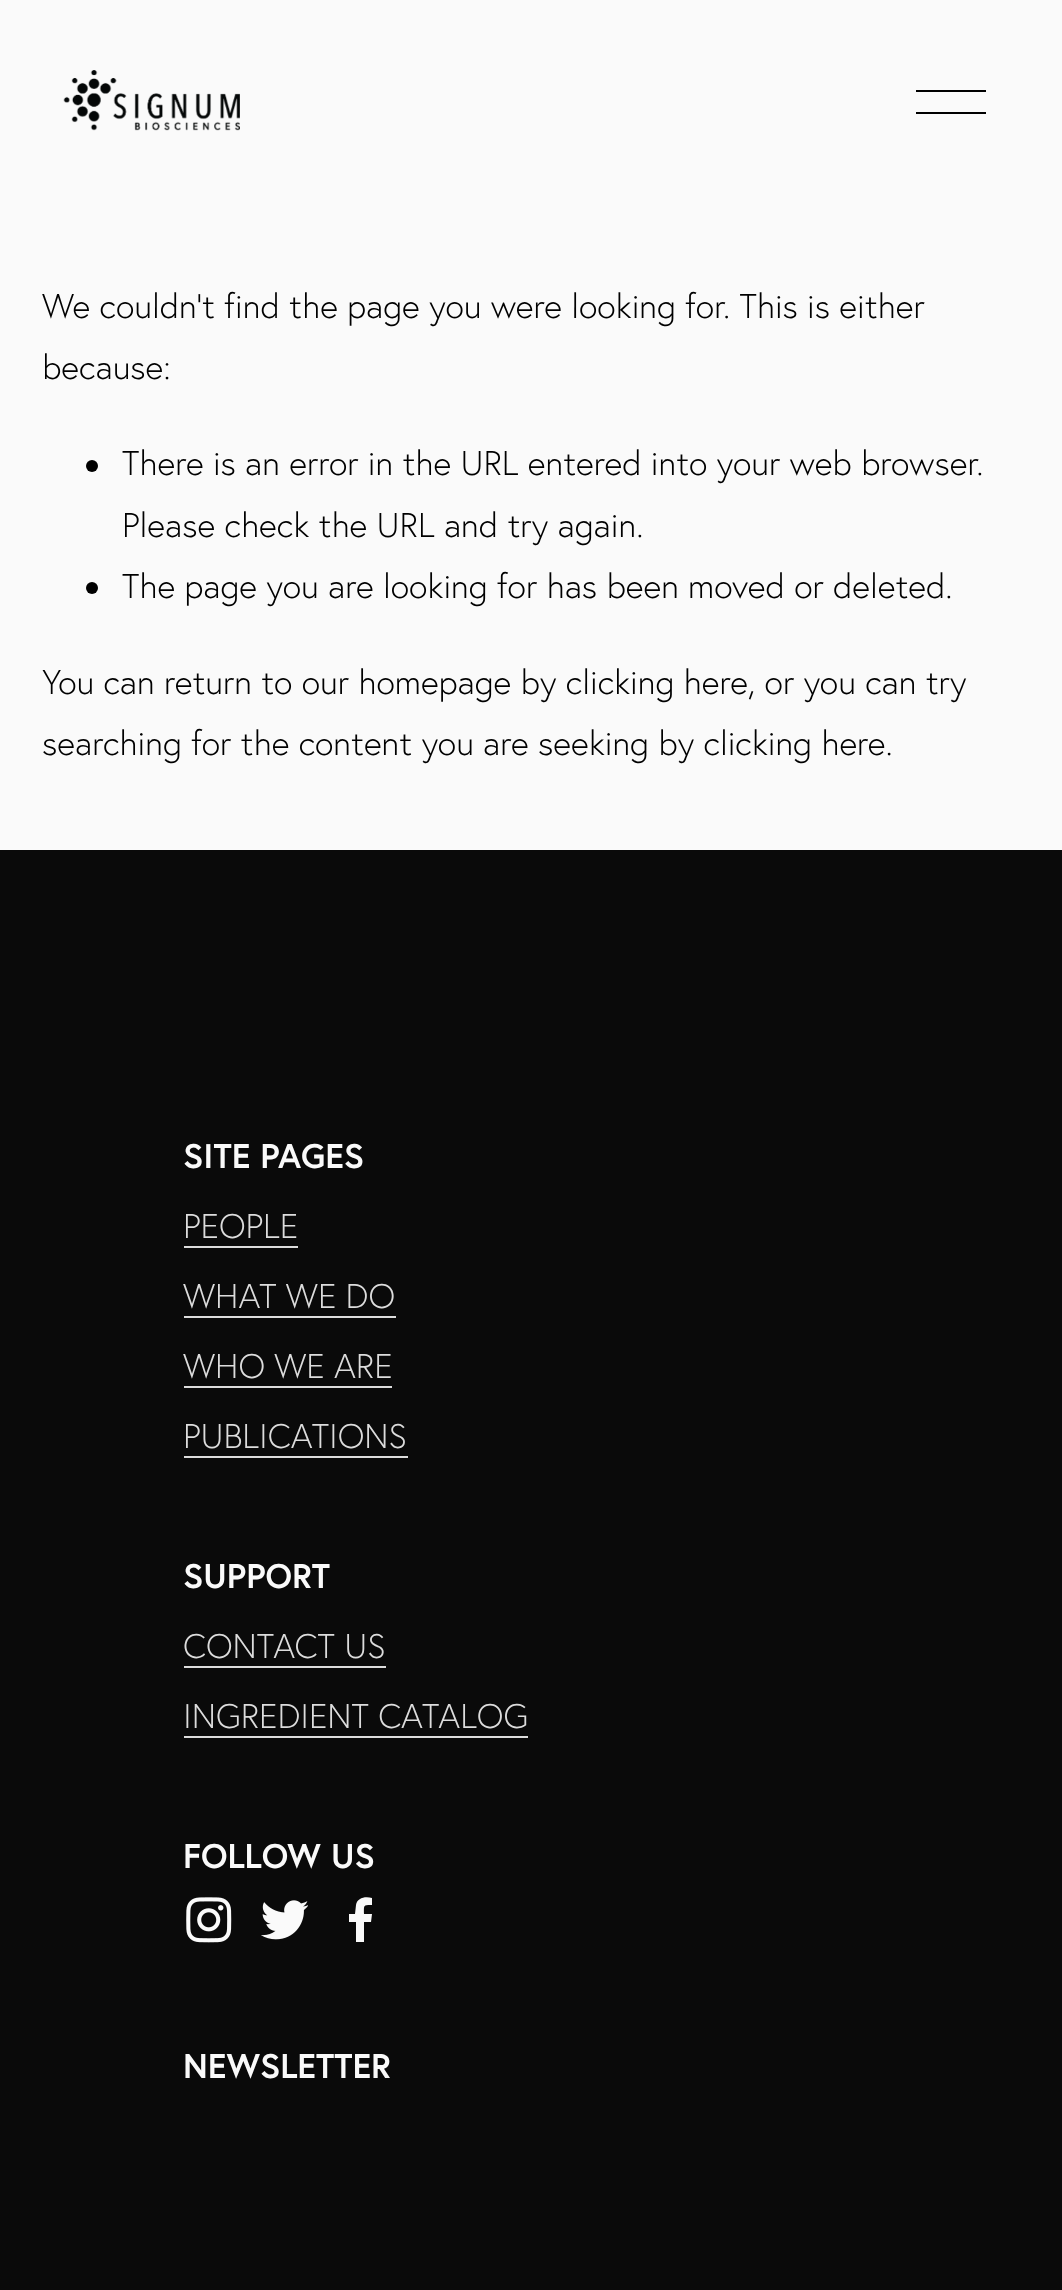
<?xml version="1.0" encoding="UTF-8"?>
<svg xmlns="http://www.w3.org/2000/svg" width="1062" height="2290">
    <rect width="100%" height="100%" fill="#FAFAFA"/>
    <image x="63" y="70" width="177" height="61" href="img_01.png"/>
    <rect x="916" y="90" width="70" height="2" fill="#000000"/>
    <rect x="916" y="112" width="70" height="2" fill="#000000"/>
    <text font-family="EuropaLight" font-size="34.15" font-weight="300" fill="#000000">
        <tspan x="42" y="318">We couldn't find the page you were looking for. This is either</tspan>
        <tspan x="42" y="379">because:</tspan>
    </text>
    <circle cx="92" cy="466" r="6" fill="#000000"/>
    <text font-family="EuropaLight" font-size="34.15" font-weight="300" fill="#000000">
        <tspan x="122" y="475">There is an error in the URL entered into your web browser.</tspan>
        <tspan x="122" y="537">Please check the URL and try again.</tspan>
    </text>
    <circle cx="92" cy="588" r="6" fill="#000000"/>
    <text x="122" y="598" font-family="EuropaLight" font-size="34.15" font-weight="300" fill="#000000">The page you are looking for has been moved or deleted.</text>
    <text font-family="EuropaLight" font-size="34.15" font-weight="300" fill="#000000">
        <tspan x="42" y="694">You can return to our homepage by clicking here, or you can try</tspan>
        <tspan x="42" y="755">searching for the content you are seeking by clicking here.</tspan>
    </text>
    <rect x="0" y="850" width="1062" height="1440" fill="#0A0A0A"/>
    <text x="183" y="1168" font-family="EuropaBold" font-size="34.15" font-weight="700" fill="#FAFAFA">SITE PAGES</text>
    <text x="183" y="1238" font-family="EuropaLight" font-size="34.15" font-weight="300" fill="#DCDCDC">PEOPLE</text>
    <rect x="184" y="1246" width="114" height="2" fill="#DCDCDC"/>
    <text x="183" y="1308" font-family="EuropaLight" font-size="34.15" font-weight="300" fill="#DCDCDC">WHAT WE DO</text>
    <rect x="184" y="1316" width="212" height="2" fill="#DCDCDC"/>
    <text x="183" y="1378" font-family="EuropaLight" font-size="34.15" font-weight="300" fill="#DCDCDC">WHO WE ARE</text>
    <rect x="184" y="1386" width="208" height="2" fill="#DCDCDC"/>
    <text x="183" y="1448" font-family="EuropaLight" font-size="34.15" font-weight="300" fill="#DCDCDC">PUBLICATIONS</text>
    <rect x="184" y="1456" width="224" height="2" fill="#DCDCDC"/>
    <text x="183" y="1588" font-family="EuropaBold" font-size="34.15" font-weight="700" fill="#FAFAFA">SUPPORT</text>
    <text x="183" y="1658" font-family="EuropaLight" font-size="34.15" font-weight="300" fill="#DCDCDC">CONTACT US</text>
    <rect x="184" y="1666" width="202" height="2" fill="#DCDCDC"/>
    <text x="183" y="1728" font-family="EuropaLight" font-size="34.15" font-weight="300" fill="#DCDCDC">INGREDIENT CATALOG</text>
    <rect x="184" y="1736" width="344" height="2" fill="#DCDCDC"/>
    <text x="183" y="1868" font-family="EuropaBold" font-size="34.15" font-weight="700" fill="#FAFAFA">FOLLOW US</text>
    <image x="186" y="1897" width="46" height="46" href="img_02.png"/>
    <image x="261" y="1900" width="47" height="40" href="img_03.png"/>
    <path d="M 364 1942 V 1922 H 371 L 372 1914 H 364 C 364 1905 363 1905 372 1905 V 1898 C 365 1896 357 1898 356 1905 L 355 1914 H 349 V 1922 H 356 V 1942 Z" fill="#FAFAFA"/>
    <text x="183" y="2078" font-family="EuropaBold" font-size="34.15" font-weight="700" fill="#FAFAFA">NEWSLETTER</text>
</svg>
